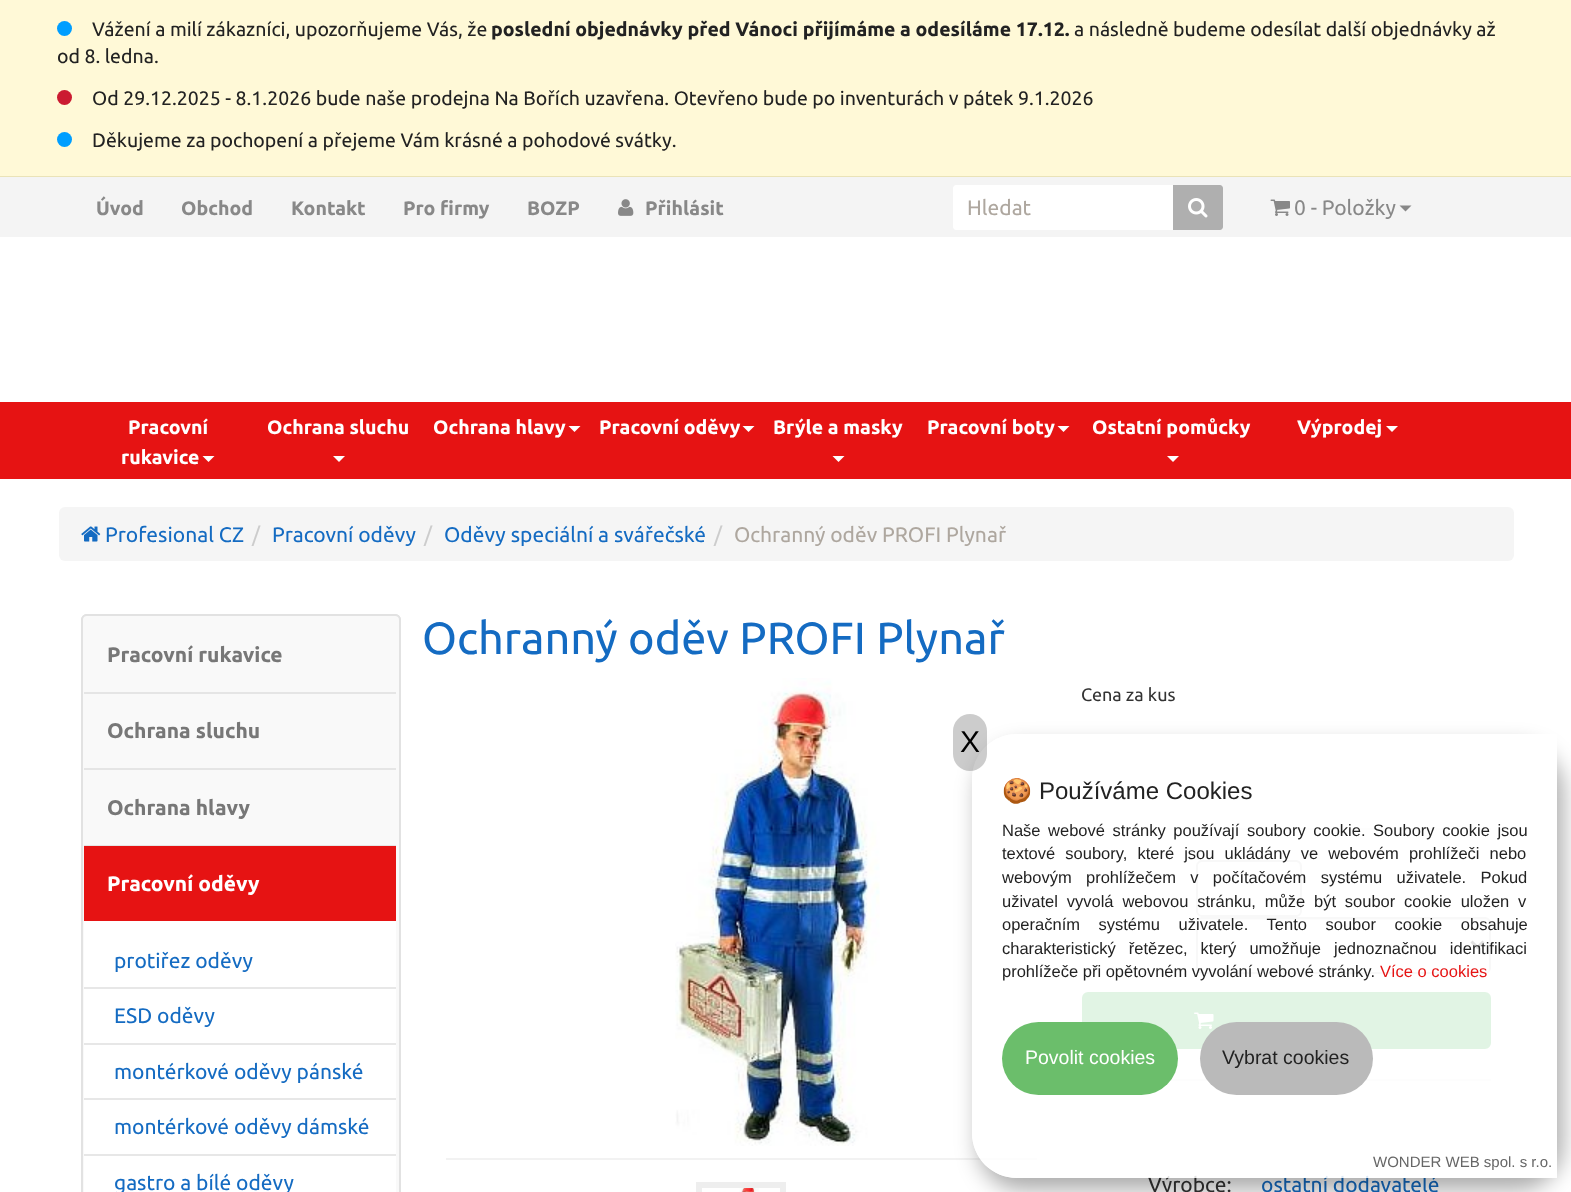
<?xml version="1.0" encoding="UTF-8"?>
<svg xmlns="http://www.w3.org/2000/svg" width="1571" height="1192">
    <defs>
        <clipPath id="clip1"><path d="M 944 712 H 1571 V 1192 H 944 Z M 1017 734 H 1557 V 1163 C 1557 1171.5 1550.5 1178 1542 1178 H 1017 C 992 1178 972 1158 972 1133 V 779 C 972 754 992 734 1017 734 Z" clip-rule="evenodd"/></clipPath>
        <filter id="blur1" x="-50%" y="-200%" width="200%" height="500%"><feGaussianBlur stdDeviation="11"/></filter>
    </defs>
    <rect width="100%" height="100%" fill="#FFFFFF"/>
    <rect x="0" y="0" width="1571" height="176" fill="#FFF9D7"/>
    <rect x="0" y="176" width="1571" height="1" fill="#EAE3B8"/>
    <circle cx="64.5" cy="28.5" r="7.5" fill="#009EFF"/>
    <text x="92" y="36" font-family="Ubuntu" font-size="19.5" fill="#222222">Vážení a milí zákazníci, upozorňujeme Vás, že</text>
    <text x="491" y="36" font-family="Ubuntu" font-size="19.5" font-weight="700" fill="#222222">poslední objednávky před Vánoci přijímáme a odesíláme 17.12.</text>
    <text x="1074" y="36" font-family="Ubuntu" font-size="19.5" fill="#222222">a následně budeme odesílat další objednávky až</text>
    <text x="57" y="63" font-family="Ubuntu" font-size="19.5" fill="#222222">od 8. ledna.</text>
    <circle cx="64.5" cy="97.5" r="7.5" fill="#CB1B31"/>
    <text x="92" y="105" font-family="Ubuntu" font-size="19.5" fill="#222222">Od 29.12.2025 - 8.1.2026 bude naše prodejna Na Bořích uzavřena. Otevřeno bude po inventurách v pátek 9.1.2026</text>
    <circle cx="64.5" cy="139.5" r="7.5" fill="#009EFF"/>
    <text x="92" y="147" font-family="Ubuntu" font-size="19.5" fill="#222222">Děkujeme za pochopení a přejeme Vám krásné a pohodové svátky.</text>
    <rect x="0" y="177" width="1571" height="60" fill="#F4F4F4"/>
    <text x="96" y="215" font-family="Ubuntu" font-size="19.5" font-weight="700" fill="#888888">Úvod</text>
    <text x="181" y="215" font-family="Ubuntu" font-size="19.5" font-weight="700" fill="#888888">Obchod</text>
    <text x="291" y="215" font-family="Ubuntu" font-size="19.5" font-weight="700" fill="#888888">Kontakt</text>
    <text x="403" y="215" font-family="Ubuntu" font-size="19.5" font-weight="700" fill="#888888">Pro firmy</text>
    <text x="527" y="215" font-family="Ubuntu" font-size="19.5" font-weight="700" fill="#888888">BOZP</text>
    <image x="618" y="199" width="16" height="17" href="img_01.png"/>
    <text x="645" y="215" font-family="Ubuntu" font-size="19.5" font-weight="700" fill="#888888">Přihlásit</text>
    <path d="M 956 185 H 1175 V 230 H 956 C 954.5 230 953 228.5 953 227 V 188 C 953 186.5 954.5 185 956 185 Z" fill="#FFFFFF"/>
    <text x="967" y="215" font-family="Ubuntu" font-size="21" fill="#AEA79F">Hledat</text>
    <path d="M 1173 185 H 1220 C 1221.5 185 1223 186.5 1223 188 V 227 C 1223 228.5 1221.5 230 1220 230 H 1173 Z" fill="#AFAFAF"/>
    <image x="1188" y="198" width="20" height="20" href="img_02.png"/>
    <image x="1270" y="199" width="20" height="17" href="img_03.png"/>
    <text x="1294" y="215" font-family="Ubuntu" font-size="21" fill="#888888">0 - Položky</text>
    <path d="M 1399.5 205.5 H 1411.5 L 1405.5 211.5 Z" fill="#888888"/>
    <rect x="0" y="402" width="1571" height="77" fill="#E61313"/>
    <text x="128" y="434" font-family="Ubuntu" font-size="19.5" font-weight="700" fill="#FFFFFF">Pracovní</text>
    <text x="121" y="464" font-family="Ubuntu" font-size="19.5" font-weight="700" fill="#FFFFFF">rukavice</text>
    <path d="M 202.5 456 H 214.5 L 208.5 462 Z" fill="#FFFFFF"/>
    <text x="267" y="434" font-family="Ubuntu" font-size="19.5" font-weight="700" fill="#FFFFFF">Ochrana sluchu</text>
    <path d="M 333 456 H 345 L 339 462 Z" fill="#FFFFFF"/>
    <text x="433" y="434" font-family="Ubuntu" font-size="19.5" font-weight="700" fill="#FFFFFF">Ochrana hlavy</text>
    <path d="M 568.5 426 H 580.5 L 574.5 432 Z" fill="#FFFFFF"/>
    <text x="599" y="434" font-family="Ubuntu" font-size="19.5" font-weight="700" fill="#FFFFFF">Pracovní oděvy</text>
    <path d="M 742.5 426 H 754.5 L 748.5 432 Z" fill="#FFFFFF"/>
    <text x="773" y="434" font-family="Ubuntu" font-size="19.5" font-weight="700" fill="#FFFFFF">Brýle a masky</text>
    <path d="M 832.5 456 H 844.5 L 838.5 462 Z" fill="#FFFFFF"/>
    <text x="927" y="434" font-family="Ubuntu" font-size="19.5" font-weight="700" fill="#FFFFFF">Pracovní boty</text>
    <path d="M 1057.5 426 H 1069.5 L 1063.5 432 Z" fill="#FFFFFF"/>
    <text x="1092" y="434" font-family="Ubuntu" font-size="19.5" font-weight="700" fill="#FFFFFF">Ostatní pomůcky</text>
    <path d="M 1167 456 H 1179 L 1173 462 Z" fill="#FFFFFF"/>
    <text x="1297" y="434" font-family="Ubuntu" font-size="19.5" font-weight="700" fill="#FFFFFF">Výprodej</text>
    <path d="M 1386 426 H 1398 L 1392 432 Z" fill="#FFFFFF"/>
    <rect x="59" y="507" width="1455" height="54" rx="6" fill="#F5F5F5"/>
    <image x="81" y="526" width="20" height="16" href="img_04.png"/>
    <text x="105" y="542" font-family="Ubuntu" font-size="21" fill="#146BC2">Profesional CZ</text>
    <text x="252" y="542" font-family="Ubuntu" font-size="21" fill="#CCCCCC">/</text>
    <text x="272" y="542" font-family="Ubuntu" font-size="21" fill="#146BC2">Pracovní oděvy</text>
    <text x="424" y="542" font-family="Ubuntu" font-size="21" fill="#CCCCCC">/</text>
    <text x="444" y="542" font-family="Ubuntu" font-size="21" fill="#146BC2">Oděvy speciální a svářečské</text>
    <text x="714" y="542" font-family="Ubuntu" font-size="21" fill="#CCCCCC">/</text>
    <text x="734" y="542" font-family="Ubuntu" font-size="21" fill="#AEA79F">Ochranný oděv PROFI Plynař</text>
    <rect x="82" y="615" width="318" height="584" rx="5" fill="none" stroke="#DDDDDD" stroke-width="2"/>
    <rect x="82" y="615" width="318" height="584" rx="5" fill="#F9F9F9" stroke="#E2E2E2" stroke-width="2"/>
    <rect x="84" y="692" width="312" height="2" fill="#E5E5E5"/>
    <text x="107" y="662" font-family="Ubuntu" font-size="21" font-weight="700" fill="#777777">Pracovní rukavice</text>
    <rect x="84" y="768" width="312" height="2" fill="#E5E5E5"/>
    <text x="107" y="738" font-family="Ubuntu" font-size="21" font-weight="700" fill="#777777">Ochrana sluchu</text>
    <rect x="84" y="845" width="312" height="1" fill="#E5E5E5"/>
    <text x="107" y="815" font-family="Ubuntu" font-size="21" font-weight="700" fill="#777777">Ochrana hlavy</text>
    <rect x="84" y="846" width="312" height="75" fill="#E61313"/>
    <text x="107" y="891" font-family="Ubuntu" font-size="21" font-weight="700" fill="#FFFFFF">Pracovní oděvy</text>
    <rect x="84" y="921" width="312" height="271" fill="#FFFFFF"/>
    <rect x="84" y="987" width="312" height="2" fill="#E7E7E7"/>
    <text x="114" y="968" font-family="Ubuntu" font-size="21" fill="#146BC2">protiřez oděvy</text>
    <rect x="84" y="1043" width="312" height="2" fill="#E7E7E7"/>
    <text x="114" y="1023" font-family="Ubuntu" font-size="21" fill="#146BC2">ESD oděvy</text>
    <rect x="84" y="1098" width="312" height="2" fill="#E7E7E7"/>
    <text x="114" y="1079" font-family="Ubuntu" font-size="21" fill="#146BC2">montérkové oděvy pánské</text>
    <rect x="84" y="1154" width="312" height="2" fill="#E7E7E7"/>
    <text x="114" y="1134" font-family="Ubuntu" font-size="21" fill="#146BC2">montérkové oděvy dámské</text>
    <text x="114" y="1190" font-family="Ubuntu" font-size="21" fill="#146BC2">gastro a bílé oděvy</text>
    <text x="422" y="654" font-family="Ubuntu" font-size="45" fill="#146BC2">Ochranný oděv PROFI Plynař</text>
    <image x="675" y="678" width="205" height="468" href="img_05.png"/>
    <rect x="446" y="1158" width="591" height="2" fill="#F2F2F2"/>
    <rect x="699" y="1185" width="84" height="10" fill="none" stroke="#EEEEEE" stroke-width="6"/>
    <image x="739" y="1188" width="20" height="4" href="img_06.png"/>
    <text x="1081" y="701" font-family="Ubuntu" font-size="18" fill="#333333">Cena za kus</text>
    <rect x="1082" y="828" width="409" height="2" fill="#EEEEEE"/>
    <path d="M 1202 862 H 1296 C 1301 862 1300 873 1300 874 V 913 C 1301 912 1301 911 1301 910 V 866 C 1301 863 1299 861 1296 861 H 1202 C 1199 861 1197 863 1197 866 V 867 C 1197 865 1199 862 1202 862 Z" fill="#ECECEC"/>
    <rect x="1197" y="861" width="104" height="55" rx="5" fill="none" stroke="#CCCCCC" stroke-width="2"/>
    <path d="M 1202 920 H 1485 C 1487 920 1490 922 1490 924 V 923 C 1490 920 1488 918 1485 918 H 1202 C 1199 918 1197 920 1197 923 V 924 C 1197 922 1199 920 1202 920 Z" fill="#ECECEC"/>
    <rect x="1197" y="918" width="293" height="55" rx="5" fill="none" stroke="#CCCCCC" stroke-width="2"/>
    <path d="M 1471.5 941.5 L 1477.5 947.5 L 1483.5 941.5" fill="none" stroke="#333333" stroke-width="3"/>
    <rect x="1083" y="993" width="407" height="55" rx="5" fill="#38B44A" stroke="#38B44A" stroke-width="2"/>
    <image x="1194" y="1012" width="20" height="17" href="img_07.png"/>
    <rect x="1170" y="1079" width="321" height="2" fill="#EEEEEE"/>
    <text x="1148" y="1192" font-family="Ubuntu" font-size="21" fill="#333333">Výrobce:</text>
    <text x="1261" y="1192" font-family="Ubuntu" font-size="21" fill="#146BC2">ostatní dodavatelé</text>
    <g clip-path="url(#clip1)">
        <rect x="978" y="746" width="585" height="444" rx="45" fill="#000000" fill-opacity="0.33" filter="url(#blur1)"/>
    </g>
    <path d="M 1017 734 H 1557 V 1163 C 1557 1171.5 1550.5 1178 1542 1178 H 1017 C 992 1178 972 1158 972 1133 V 779 C 972 754 992 734 1017 734 Z" fill="#FFFFFF" fill-opacity="0.85"/>
    <rect x="953" y="714" width="34" height="57" rx="17" fill="#000000" fill-opacity="0.2"/>
    <text x="960" y="752" font-family="Liberation Sans" font-size="30" fill="#000000">X</text>
    <text x="1002" y="799" font-family="Noto Color Emoji" font-size="24" fill="#222222">🍪</text>
    <text x="1039" y="799" font-family="Liberation Sans" font-size="24" fill="#222222">Používáme Cookies</text>
    <text font-family="Liberation Sans" font-size="16.5" fill="#222222">
        <tspan x="1002" y="836" word-spacing="3">Naše webové stránky používají soubory cookie. Soubory cookie jsou</tspan>
        <tspan x="1002" y="859" word-spacing="5.5">textové soubory, které jsou ukládány ve webovém prohlížeči nebo</tspan>
        <tspan x="1002" y="883" word-spacing="9.75">webovým prohlížečem v počítačovém systému uživatele. Pokud</tspan>
        <tspan x="1002" y="907" word-spacing="4.25">uživatel vyvolá webovou stránku, může být soubor cookie uložen v</tspan>
        <tspan x="1002" y="930" word-spacing="14">operačním systému uživatele. Tento soubor cookie obsahuje</tspan>
        <tspan x="1002" y="954" word-spacing="8.5">charakteristický řetězec, který umožňuje jednoznačnou identifikaci</tspan>
        <tspan x="1002" y="977">prohlížeče při opětovném vyvolání webové stránky.</tspan>
    </text>
    <text x="1380" y="977" font-family="Liberation Sans" font-size="16.5" fill="#E61313">Více o cookies</text>
    <rect x="1002" y="1022" width="176" height="73" rx="36.5" fill="#6BBE6B"/>
    <text x="1025" y="1064" font-family="Liberation Sans" font-size="19.5" fill="#FFFFFF">Povolit cookies</text>
    <rect x="1200" y="1022" width="173" height="73" rx="36.5" fill="#BABABA"/>
    <text x="1222" y="1064" font-family="Liberation Sans" font-size="19.5" fill="#222222">Vybrat cookies</text>
    <rect x="1370" y="1165" width="187" height="13" fill="#FFFFFF"/>
    <text x="1373" y="1167" font-family="Liberation Sans" font-size="15" fill="#666666">WONDER WEB spol. s r.o.</text>
</svg>
